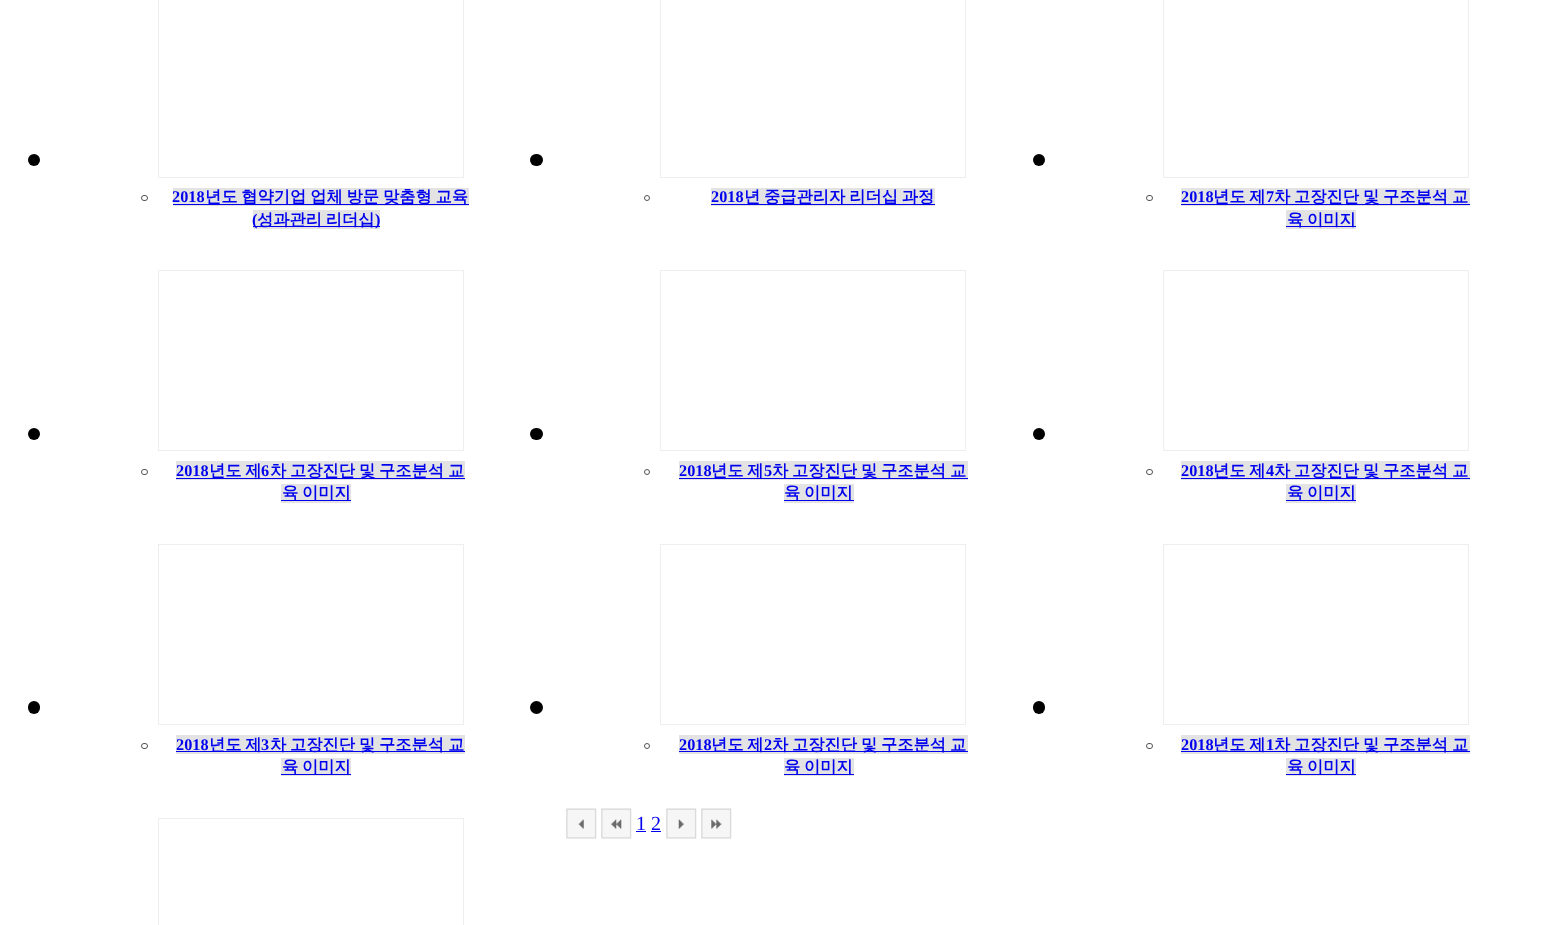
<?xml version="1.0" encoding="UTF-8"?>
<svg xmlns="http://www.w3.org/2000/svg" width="1542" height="925">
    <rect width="100%" height="100%" fill="#FFFFFF"/>
    <circle cx="34" cy="160" r="6" fill="#000000"/>
    <rect x="158.5" y="-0.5" width="305" height="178" fill="none" stroke="#EEEEEE"/>
    <rect x="141.5" y="195.5" width="6" height="5" rx="2.5" fill="none" stroke="#525252"/>
    <rect x="173" y="188" width="296" height="18" fill="#E3E3E3"/>
    <text x="172" y="202" font-family="Liberation Serif" font-size="16.25" font-weight="700" fill="#0000EE">2018</text>
    <rect x="173" y="204" width="296" height="1" fill="#0000EE"/>
    <text x="205" y="202" word-spacing="-1" font-family="WenQuanYi Zen Hei" font-size="16.25" font-weight="700" fill="#0000EE">년도 협약기업 업체 방문 맞춤형 교육</text>
    <rect x="253" y="210" width="127" height="19" fill="#E3E3E3"/>
    <rect x="253" y="226" width="127" height="1" fill="#0000EE"/>
    <text x="252" y="225" font-family="Liberation Serif" font-size="16.25" font-weight="700" fill="#0000EE">(</text>
    <text x="257" y="225" word-spacing="-1" font-family="WenQuanYi Zen Hei" font-size="16.25" font-weight="700" fill="#0000EE">성과관리 리더십</text>
    <text x="375" y="225" font-family="Liberation Serif" font-size="16.25" font-weight="700" fill="#0000EE">)</text>
    <rect x="530" y="154" width="13" height="12" rx="6" fill="#000000"/>
    <rect x="660.5" y="-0.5" width="305" height="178" fill="none" stroke="#EEEEEE"/>
    <circle cx="647" cy="198" r="2.5" fill="none" stroke="#525252"/>
    <rect x="711" y="188" width="224" height="18" fill="#E3E3E3"/>
    <text x="711" y="202" font-family="Liberation Serif" font-size="16.25" font-weight="700" fill="#0000EE">2018</text>
    <rect x="711" y="204" width="224" height="1" fill="#0000EE"/>
    <text x="744" y="202" word-spacing="-1" font-family="WenQuanYi Zen Hei" font-size="16.25" font-weight="700" fill="#0000EE">년 중급관리자 리더십 과정</text>
    <circle cx="1039" cy="160" r="6" fill="#000000"/>
    <rect x="1163.5" y="-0.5" width="305" height="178" fill="none" stroke="#EEEEEE"/>
    <rect x="1146.5" y="195.5" width="6" height="5" rx="2.5" fill="none" stroke="#525252"/>
    <rect x="1181" y="188" width="289" height="18" fill="#E3E3E3"/>
    <text x="1181" y="202" font-family="Liberation Serif" font-size="16.25" font-weight="700" fill="#0000EE">2018</text>
    <rect x="1181" y="204" width="289" height="1" fill="#0000EE"/>
    <text x="1213" y="202" word-spacing="-1" font-family="WenQuanYi Zen Hei" font-size="16.25" font-weight="700" fill="#0000EE">년도 제</text>
    <text x="1266" y="202" font-family="Liberation Serif" font-size="16.25" font-weight="700" fill="#0000EE">7</text>
    <text x="1274" y="202" word-spacing="-1" font-family="WenQuanYi Zen Hei" font-size="16.25" font-weight="700" fill="#0000EE">차 고장진단 및 구조분석 교</text>
    <rect x="1286" y="210" width="70" height="19" fill="#E3E3E3"/>
    <rect x="1286" y="226" width="70" height="1" fill="#0000EE"/>
    <text x="1287" y="225" word-spacing="-1" font-family="WenQuanYi Zen Hei" font-size="16.25" font-weight="700" fill="#0000EE">육 이미지</text>
    <circle cx="34" cy="434" r="6" fill="#000000"/>
    <rect x="158.5" y="270.5" width="305" height="180" fill="none" stroke="#EEEEEE"/>
    <rect x="141.5" y="469.5" width="6" height="5" rx="2.5" fill="none" stroke="#525252"/>
    <rect x="176" y="461" width="289" height="19" fill="#E3E3E3"/>
    <text x="176" y="476" font-family="Liberation Serif" font-size="16.25" font-weight="700" fill="#0000EE">2018</text>
    <rect x="176" y="478" width="289" height="1" fill="#0000EE"/>
    <text x="209" y="476" word-spacing="-1" font-family="WenQuanYi Zen Hei" font-size="16.25" font-weight="700" fill="#0000EE">년도 제</text>
    <text x="261" y="476" font-family="Liberation Serif" font-size="16.25" font-weight="700" fill="#0000EE">6</text>
    <text x="270" y="476" word-spacing="-1" font-family="WenQuanYi Zen Hei" font-size="16.25" font-weight="700" fill="#0000EE">차 고장진단 및 구조분석 교</text>
    <rect x="281" y="484" width="70" height="19" fill="#E3E3E3"/>
    <rect x="281" y="500" width="70" height="1" fill="#0000EE"/>
    <text x="282" y="498" word-spacing="-1" font-family="WenQuanYi Zen Hei" font-size="16.25" font-weight="700" fill="#0000EE">육 이미지</text>
    <rect x="530" y="428" width="13" height="12" rx="6" fill="#000000"/>
    <rect x="660.5" y="270.5" width="305" height="180" fill="none" stroke="#EEEEEE"/>
    <circle cx="647" cy="472" r="2.5" fill="none" stroke="#525252"/>
    <rect x="679" y="461" width="289" height="19" fill="#E3E3E3"/>
    <text x="679" y="476" font-family="Liberation Serif" font-size="16.25" font-weight="700" fill="#0000EE">2018</text>
    <rect x="679" y="478" width="289" height="1" fill="#0000EE"/>
    <text x="711" y="476" word-spacing="-1" font-family="WenQuanYi Zen Hei" font-size="16.25" font-weight="700" fill="#0000EE">년도 제</text>
    <text x="764" y="476" font-family="Liberation Serif" font-size="16.25" font-weight="700" fill="#0000EE">5</text>
    <text x="772" y="476" word-spacing="-1" font-family="WenQuanYi Zen Hei" font-size="16.25" font-weight="700" fill="#0000EE">차 고장진단 및 구조분석 교</text>
    <rect x="784" y="484" width="70" height="19" fill="#E3E3E3"/>
    <rect x="784" y="500" width="70" height="1" fill="#0000EE"/>
    <text x="784" y="498" word-spacing="-1" font-family="WenQuanYi Zen Hei" font-size="16.25" font-weight="700" fill="#0000EE">육 이미지</text>
    <circle cx="1039" cy="434" r="6" fill="#000000"/>
    <rect x="1163.5" y="270.5" width="305" height="180" fill="none" stroke="#EEEEEE"/>
    <rect x="1146.5" y="469.5" width="6" height="5" rx="2.5" fill="none" stroke="#525252"/>
    <rect x="1181" y="461" width="289" height="19" fill="#E3E3E3"/>
    <text x="1181" y="476" font-family="Liberation Serif" font-size="16.25" font-weight="700" fill="#0000EE">2018</text>
    <rect x="1181" y="478" width="289" height="1" fill="#0000EE"/>
    <text x="1213" y="476" word-spacing="-1" font-family="WenQuanYi Zen Hei" font-size="16.25" font-weight="700" fill="#0000EE">년도 제</text>
    <text x="1266" y="476" font-family="Liberation Serif" font-size="16.25" font-weight="700" fill="#0000EE">4</text>
    <text x="1274" y="476" word-spacing="-1" font-family="WenQuanYi Zen Hei" font-size="16.25" font-weight="700" fill="#0000EE">차 고장진단 및 구조분석 교</text>
    <rect x="1286" y="484" width="70" height="19" fill="#E3E3E3"/>
    <rect x="1286" y="500" width="70" height="1" fill="#0000EE"/>
    <text x="1287" y="498" word-spacing="-1" font-family="WenQuanYi Zen Hei" font-size="16.25" font-weight="700" fill="#0000EE">육 이미지</text>
    <rect x="28" y="701" width="12" height="13" rx="6" fill="#000000"/>
    <rect x="158.5" y="544.5" width="305" height="180" fill="none" stroke="#EEEEEE"/>
    <rect x="141.5" y="743.5" width="6" height="5" rx="2.5" fill="none" stroke="#525252"/>
    <rect x="176" y="735" width="289" height="19" fill="#E3E3E3"/>
    <text x="176" y="750" font-family="Liberation Serif" font-size="16.25" font-weight="700" fill="#0000EE">2018</text>
    <rect x="176" y="751" width="289" height="1" fill="#0000EE"/>
    <text x="209" y="750" word-spacing="-1" font-family="WenQuanYi Zen Hei" font-size="16.25" font-weight="700" fill="#0000EE">년도 제</text>
    <text x="261" y="750" font-family="Liberation Serif" font-size="16.25" font-weight="700" fill="#0000EE">3</text>
    <text x="270" y="750" word-spacing="-1" font-family="WenQuanYi Zen Hei" font-size="16.25" font-weight="700" fill="#0000EE">차 고장진단 및 구조분석 교</text>
    <rect x="281" y="758" width="70" height="18" fill="#E3E3E3"/>
    <rect x="281" y="774" width="70" height="1" fill="#0000EE"/>
    <text x="282" y="772" word-spacing="-1" font-family="WenQuanYi Zen Hei" font-size="16.25" font-weight="700" fill="#0000EE">육 이미지</text>
    <circle cx="536.5" cy="707.5" r="6.5" fill="#000000"/>
    <rect x="660.5" y="544.5" width="305" height="180" fill="none" stroke="#EEEEEE"/>
    <circle cx="647" cy="746" r="2.5" fill="none" stroke="#525252"/>
    <rect x="679" y="735" width="289" height="19" fill="#E3E3E3"/>
    <text x="679" y="750" font-family="Liberation Serif" font-size="16.25" font-weight="700" fill="#0000EE">2018</text>
    <rect x="679" y="751" width="289" height="1" fill="#0000EE"/>
    <text x="711" y="750" word-spacing="-1" font-family="WenQuanYi Zen Hei" font-size="16.25" font-weight="700" fill="#0000EE">년도 제</text>
    <text x="764" y="750" font-family="Liberation Serif" font-size="16.25" font-weight="700" fill="#0000EE">2</text>
    <text x="772" y="750" word-spacing="-1" font-family="WenQuanYi Zen Hei" font-size="16.25" font-weight="700" fill="#0000EE">차 고장진단 및 구조분석 교</text>
    <rect x="784" y="758" width="70" height="18" fill="#E3E3E3"/>
    <rect x="784" y="774" width="70" height="1" fill="#0000EE"/>
    <text x="784" y="772" word-spacing="-1" font-family="WenQuanYi Zen Hei" font-size="16.25" font-weight="700" fill="#0000EE">육 이미지</text>
    <rect x="1033" y="701" width="12" height="13" rx="6" fill="#000000"/>
    <rect x="1163.5" y="544.5" width="305" height="180" fill="none" stroke="#EEEEEE"/>
    <rect x="1146.5" y="743.5" width="6" height="5" rx="2.5" fill="none" stroke="#525252"/>
    <rect x="1181" y="735" width="289" height="19" fill="#E3E3E3"/>
    <text x="1181" y="750" font-family="Liberation Serif" font-size="16.25" font-weight="700" fill="#0000EE">2018</text>
    <rect x="1181" y="751" width="289" height="1" fill="#0000EE"/>
    <text x="1213" y="750" word-spacing="-1" font-family="WenQuanYi Zen Hei" font-size="16.25" font-weight="700" fill="#0000EE">년도 제</text>
    <text x="1266" y="750" font-family="Liberation Serif" font-size="16.25" font-weight="700" fill="#0000EE">1</text>
    <text x="1274" y="750" word-spacing="-1" font-family="WenQuanYi Zen Hei" font-size="16.25" font-weight="700" fill="#0000EE">차 고장진단 및 구조분석 교</text>
    <rect x="1286" y="758" width="70" height="18" fill="#E3E3E3"/>
    <rect x="1286" y="774" width="70" height="1" fill="#0000EE"/>
    <text x="1287" y="772" word-spacing="-1" font-family="WenQuanYi Zen Hei" font-size="16.25" font-weight="700" fill="#0000EE">육 이미지</text>
    <rect x="158.5" y="818.5" width="305" height="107" fill="none" stroke="#EEEEEE"/>
    <image x="566" y="808" width="31" height="31" href="img_01.png"/>
    <image x="601" y="808" width="31" height="31" href="img_02.png"/>
    <text x="636" y="830" font-family="Liberation Serif" font-size="20" fill="#0000EE">1 2</text>
    <rect x="636" y="831" width="10" height="1" fill="#0000EE"/>
    <image x="666" y="808" width="31" height="31" href="img_03.png"/>
    <image x="701" y="808" width="31" height="31" href="img_04.png"/>
    <rect x="651" y="831" width="10" height="1" fill="#0000EE"/>
</svg>
